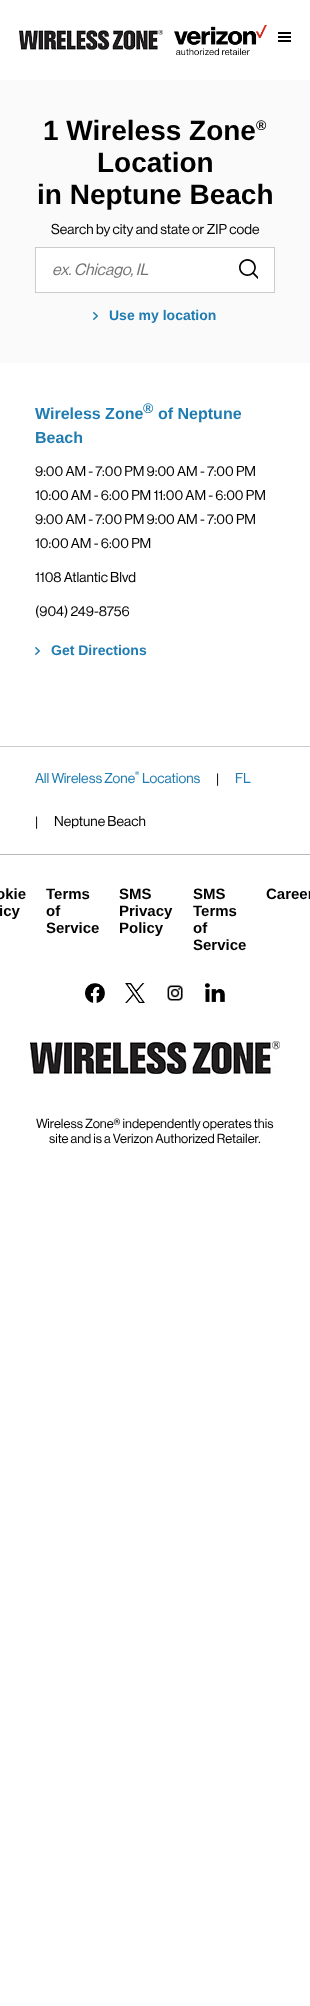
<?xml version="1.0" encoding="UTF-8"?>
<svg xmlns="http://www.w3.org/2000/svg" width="310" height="2006">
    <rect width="100%" height="100%" fill="#FFFFFF"/>
    <image x="19" y="30" width="144" height="22" href="img_01.png"/>
    <image x="174" y="24" width="93" height="32" href="img_02.png"/>
    <rect x="278" y="32" width="13" height="2" fill="#000000"/>
    <rect x="278" y="36" width="13" height="2" fill="#000000"/>
    <rect x="278" y="40" width="13" height="2" fill="#000000"/>
    <rect x="0" y="80" width="310" height="283" fill="#FAFAFA"/>
    <text x="43" y="140" font-family="Liberation Sans" font-size="28" font-weight="700" fill="#000000">1 Wireless Zone</text>
    <text x="256" y="130" font-family="Liberation Sans" font-size="14" font-weight="700" fill="#000000">®</text>
    <text x="97" y="172" font-family="Liberation Sans" font-size="28" font-weight="700" fill="#000000">Location</text>
    <text x="37" y="204" font-family="Liberation Sans" font-size="28" font-weight="700" fill="#000000">in Neptune Beach</text>
    <text x="51" y="234" font-family="'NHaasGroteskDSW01'" font-size="14" fill="#000000">Search by city and state or ZIP code</text>
    <rect x="35.5" y="247.5" width="239" height="45" fill="#FFFFFF" stroke="#CCCCCC"/>
    <text x="52" y="275" font-family="'NHaasGroteskDSW01'" font-size="16" font-style="italic" fill="#757575">ex. Chicago, IL</text>
    <image x="239" y="259" width="19" height="20" href="img_03.png"/>
    <image x="93" y="312" width="5" height="8" href="img_04.png"/>
    <text x="109" y="320" font-family="Liberation Sans" font-size="14" font-weight="700" fill="#207CB1">Use my location</text>
    <text x="35" y="419" font-family="Liberation Sans" font-size="16" font-weight="700" fill="#207CB1">Wireless Zone</text>
    <text x="143" y="413" font-family="Liberation Sans" font-size="14" font-weight="700" fill="#207CB1">®</text>
    <text x="158" y="419" font-family="Liberation Sans" font-size="16" font-weight="700" fill="#207CB1">of Neptune</text>
    <text x="35" y="443" font-family="Liberation Sans" font-size="16" font-weight="700" fill="#207CB1">Beach</text>
    <text font-family="'NHaasGroteskDSW01'" font-size="14" fill="#000000">
        <tspan x="35" y="476">9:00 AM - 7:00 PM 9:00 AM - 7:00 PM</tspan>
        <tspan x="35" y="500">10:00 AM - 6:00 PM 11:00 AM - 6:00 PM</tspan>
        <tspan x="35" y="524">9:00 AM - 7:00 PM 9:00 AM - 7:00 PM</tspan>
        <tspan x="35" y="548">10:00 AM - 6:00 PM</tspan>
    </text>
    <text x="35" y="582" font-family="'NHaasGroteskDSW01'" font-size="14" fill="#000000">1108 Atlantic Blvd</text>
    <text x="35" y="616" font-family="'NHaasGroteskDSW01'" font-size="14" fill="#000000">(904) 249-8756</text>
    <image x="35" y="647" width="5" height="8" href="img_05.png"/>
    <text x="51" y="655" font-family="Liberation Sans" font-size="14" font-weight="700" fill="#207CB1">Get Directions</text>
    <rect x="0" y="746" width="310" height="1" fill="#CCCCCC"/>
    <text x="35" y="783" font-family="'NHaasGroteskDSW01'" font-size="14" fill="#207CB1">All Wireless Zone</text>
    <text x="135" y="777" font-family="'NHaasGroteskDSW01'" font-size="8" fill="#207CB1">®</text>
    <text x="142" y="783" font-family="'NHaasGroteskDSW01'" font-size="14" fill="#207CB1">Locations</text>
    <text x="216" y="784" font-family="'NHaasGroteskDSW01'" font-size="14" fill="#000000">|</text>
    <text x="235" y="783" font-family="'NHaasGroteskDSW01'" font-size="14" fill="#207CB1">FL</text>
    <text x="35" y="827" font-family="'NHaasGroteskDSW01'" font-size="14" fill="#000000">|</text>
    <text x="54" y="826" font-family="'NHaasGroteskDSW01'" font-size="14" fill="#000000">Neptune Beach</text>
    <rect x="0" y="854" width="310" height="1" fill="#B9B9B9"/>
    <text x="-4" y="899" font-family="Liberation Sans" font-size="15" font-weight="700" fill="#000000">okie</text>
    <text x="-1" y="916" font-family="Liberation Sans" font-size="15" font-weight="700" fill="#000000">icy</text>
    <text font-family="Liberation Sans" font-size="15" font-weight="700" fill="#000000">
        <tspan x="46" y="899">Terms</tspan>
        <tspan x="46" y="916">of</tspan>
        <tspan x="46" y="933">Service</tspan>
    </text>
    <text font-family="Liberation Sans" font-size="15" font-weight="700" fill="#000000">
        <tspan x="119" y="899">SMS</tspan>
        <tspan x="119" y="916">Privacy</tspan>
        <tspan x="119" y="933">Policy</tspan>
    </text>
    <text font-family="Liberation Sans" font-size="15" font-weight="700" fill="#000000">
        <tspan x="193" y="899">SMS</tspan>
        <tspan x="193" y="916">Terms</tspan>
        <tspan x="193" y="933">of</tspan>
        <tspan x="193" y="950">Service</tspan>
    </text>
    <text x="266" y="899" font-family="Liberation Sans" font-size="15" font-weight="700" fill="#000000">Career</text>
    <image x="85" y="983" width="20" height="20" href="img_06.png"/>
    <image x="125" y="983" width="20" height="20" href="img_07.png"/>
    <image x="167" y="985" width="16" height="16" href="img_08.png"/>
    <image x="205" y="983" width="20" height="19" href="img_09.png"/>
    <image x="30" y="1041" width="250" height="36" href="img_10.png"/>
    <text x="36" y="1128" font-family="'NHaasGroteskDSW01'" font-size="13" fill="#000000">Wireless Zone® independently operates this</text>
    <text x="49" y="1143" font-family="'NHaasGroteskDSW01'" font-size="13" fill="#000000">site and is a Verizon Authorized Retailer.</text>
</svg>
